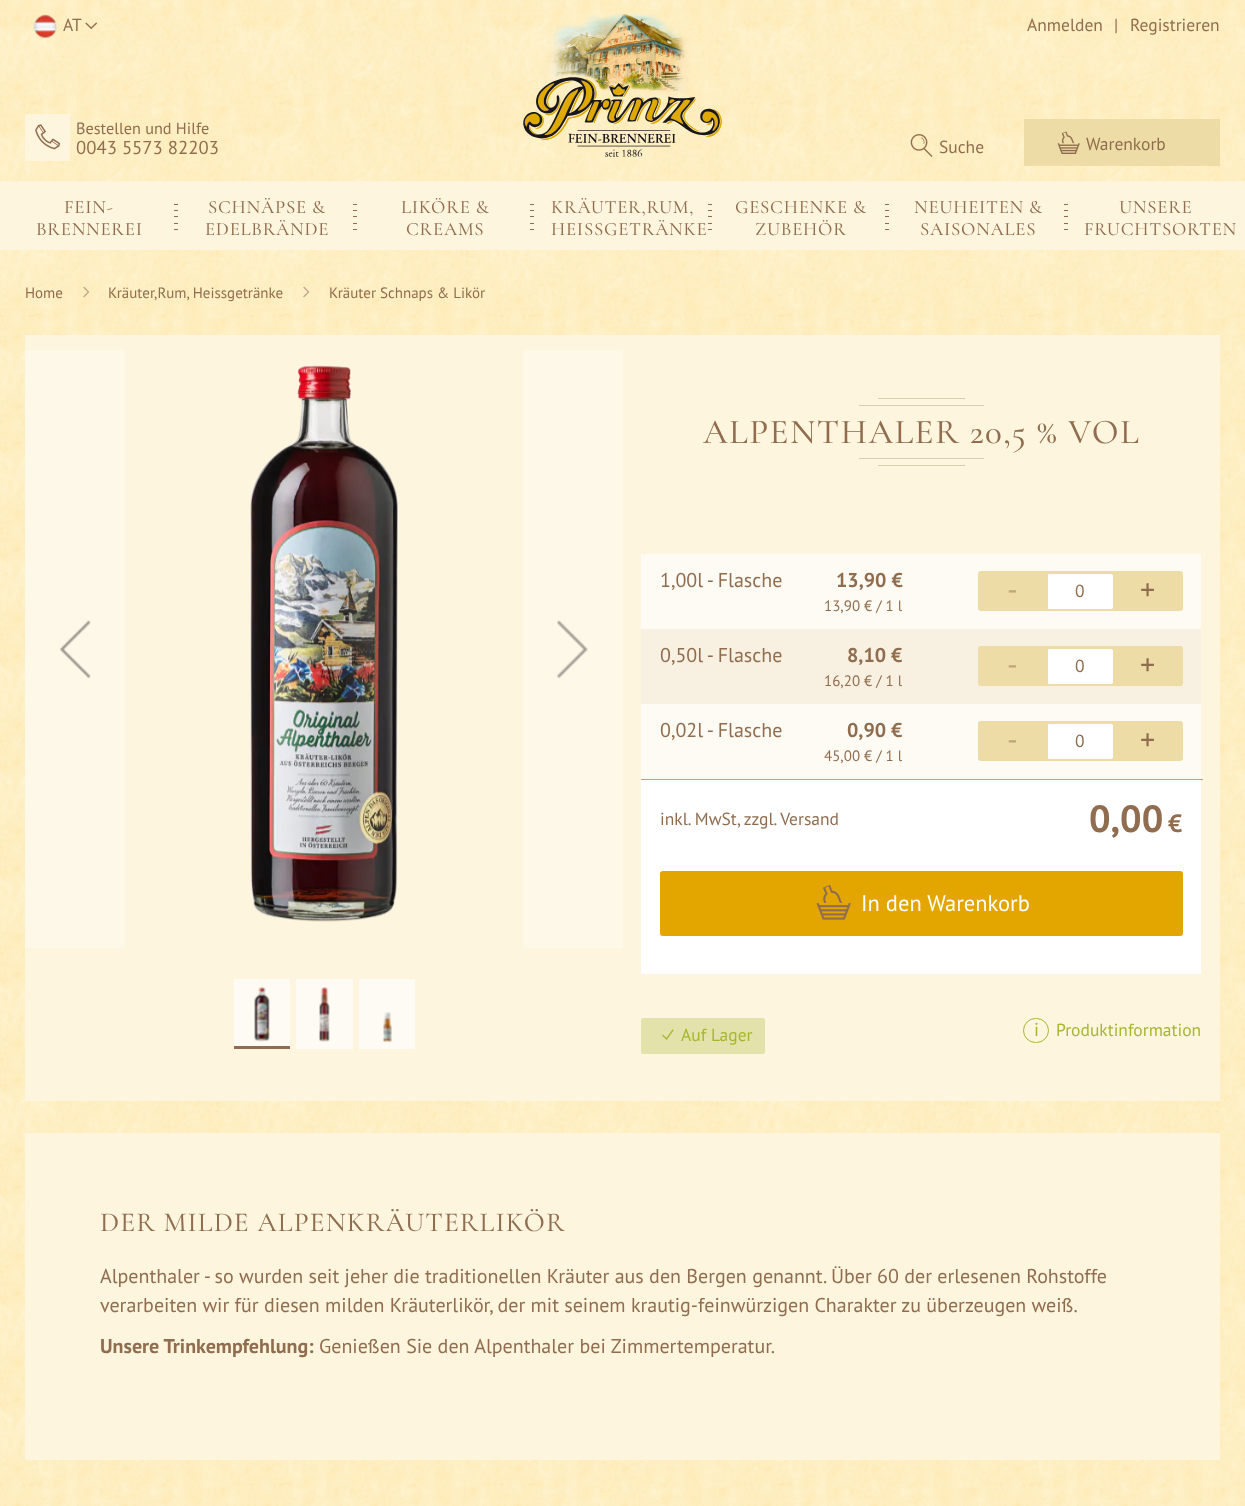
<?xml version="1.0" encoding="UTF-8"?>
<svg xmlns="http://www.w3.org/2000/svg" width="1245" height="1506">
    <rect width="100%" height="100%" fill="#FFFFFF"/>
    <image x="0" y="0" width="1245" height="1506" href="img_01.png"/>
    <rect x="0" y="181" width="1245" height="69" fill="#FEF5DF"/>
    <image x="0" y="181" width="1245" height="1" href="img_02.png"/>
    <image x="33" y="14" width="24" height="24" href="img_03.png"/>
    <text x="63" y="31" font-family="PT Sans" font-size="17.5" fill="#906D4F">AT</text>
    <image x="85" y="22" width="13" height="8" href="img_04.png"/>
    <text x="1027" y="31" font-family="PT Sans" font-size="17.5" fill="#906D4F">Anmelden</text>
    <text x="1114" y="31" font-family="PT Sans" font-size="17.5" fill="#906D4F">|</text>
    <text x="1130" y="31" font-family="PT Sans" font-size="17.5" fill="#906D4F">Registrieren</text>
    <rect x="25" y="114" width="45" height="47" fill="#FEF5DF"/>
    <image x="35" y="124" width="25" height="26" href="img_05.png"/>
    <text x="76" y="134" font-family="PT Sans" font-size="16.25" fill="#906D4F">Bestellen und Hilfe</text>
    <text x="76" y="154" font-family="PT Sans" font-size="18.75" fill="#906D4F">0043 5573 82203</text>
    <image x="523" y="13" width="199" height="144" href="img_06.png"/>
    <image x="910" y="134" width="23" height="23" href="img_07.png"/>
    <text x="939" y="153" font-family="PT Sans" font-size="17.5" fill="#906D4F">Suche</text>
    <rect x="1024" y="119" width="196" height="47" fill="#EDDCA5"/>
    <image x="1057" y="131" width="23" height="23" href="img_08.png"/>
    <text x="1086" y="150" font-family="PT Sans" font-size="17.5" fill="#906D4F">Warenkorb</text>
    <text x="64" y="213" font-family="Cormorant Garamond" font-size="18.75" font-weight="500" letter-spacing="0.75" fill="#906D4F">FEIN-</text>
    <text x="36" y="235" font-family="Cormorant Garamond" font-size="18.75" font-weight="500" letter-spacing="0.75" fill="#906D4F">BRENNEREI</text>
    <image x="174" y="204" width="4" height="26" href="img_09.png"/>
    <text x="208" y="213" font-family="Cormorant Garamond" font-size="18.75" font-weight="500" letter-spacing="0.75" fill="#906D4F">SCHNÄPSE &amp;</text>
    <text x="205" y="235" font-family="Cormorant Garamond" font-size="18.75" font-weight="500" letter-spacing="0.75" fill="#906D4F">EDELBRÄNDE</text>
    <image x="353" y="204" width="4" height="26" href="img_09.png"/>
    <text x="401" y="213" font-family="Cormorant Garamond" font-size="18.75" font-weight="500" letter-spacing="0.75" fill="#906D4F">LIKÖRE &amp;</text>
    <text x="406" y="235" font-family="Cormorant Garamond" font-size="18.75" font-weight="500" letter-spacing="0.75" fill="#906D4F">CREAMS</text>
    <image x="530" y="204" width="4" height="26" href="img_09.png"/>
    <text font-family="Cormorant Garamond" font-size="18.75" font-weight="500" letter-spacing="0.75" fill="#906D4F">
        <tspan x="551" y="213">KRÄUTER,RUM,</tspan>
        <tspan x="551" y="235">HEISSGETRÄNKE</tspan>
    </text>
    <image x="708" y="204" width="4" height="26" href="img_09.png"/>
    <text x="735" y="213" font-family="Cormorant Garamond" font-size="18.75" font-weight="500" letter-spacing="0.75" fill="#906D4F">GESCHENKE &amp;</text>
    <text x="755" y="235" font-family="Cormorant Garamond" font-size="18.75" font-weight="500" letter-spacing="0.75" fill="#906D4F">ZUBEHÖR</text>
    <image x="885" y="204" width="4" height="26" href="img_09.png"/>
    <text x="914" y="213" font-family="Cormorant Garamond" font-size="18.75" font-weight="500" letter-spacing="0.75" fill="#906D4F">NEUHEITEN &amp;</text>
    <text x="920" y="235" font-family="Cormorant Garamond" font-size="18.75" font-weight="500" letter-spacing="0.75" fill="#906D4F">SAISONALES</text>
    <image x="1064" y="204" width="4" height="26" href="img_09.png"/>
    <text x="1119" y="213" font-family="Cormorant Garamond" font-size="18.75" font-weight="500" letter-spacing="0.75" fill="#906D4F">UNSERE</text>
    <text x="1084" y="235" font-family="Cormorant Garamond" font-size="18.75" font-weight="500" letter-spacing="0.75" fill="#906D4F">FRUCHTSORTEN</text>
    <text x="25" y="298" font-family="PT Sans" font-size="15" fill="#906D4F">Home</text>
    <image x="83" y="286" width="7" height="12" href="img_10.png"/>
    <text x="108" y="298" font-family="PT Sans" font-size="15" fill="#906D4F">Kräuter,Rum, Heissgetränke</text>
    <image x="303" y="286" width="7" height="12" href="img_11.png"/>
    <text x="329" y="298" font-family="PT Sans" font-size="15" fill="#906D4F">Kräuter Schnaps &amp; Likör</text>
    <rect x="25" y="335" width="1195" height="766" fill="#FEF5DF"/>
    <rect x="25" y="350" width="100" height="598" fill="#FEF8E9"/>
    <image x="60" y="620" width="31" height="59" href="img_12.png"/>
    <image x="250" y="365" width="148" height="557" href="img_13.png"/>
    <rect x="523" y="350" width="100" height="598" fill="#FEF8E9"/>
    <image x="557" y="620" width="31" height="59" href="img_14.png"/>
    <rect x="234" y="979" width="56" height="67" fill="#FEFBF4"/>
    <image x="254" y="987" width="16" height="55" href="img_15.png"/>
    <rect x="296" y="979" width="57" height="70" fill="#FEFBF4"/>
    <image x="319" y="987" width="11" height="55" href="img_16.png"/>
    <rect x="359" y="979" width="56" height="70" fill="#FEFBF4"/>
    <image x="383" y="1012" width="9" height="31" href="img_17.png"/>
    <rect x="234" y="1046" width="56" height="3" fill="#906D4F"/>
    <rect x="878" y="398" width="87" height="1" fill="#D9CDB2"/>
    <rect x="859" y="405" width="125" height="1" fill="#D9CDB2"/>
    <text x="703" y="443" font-family="Cormorant Garamond" font-size="35" font-weight="500" letter-spacing="1.4" fill="#906D4F">ALPENTHALER 20,5 % VOL</text>
    <rect x="859" y="458" width="125" height="1" fill="#D9CDB2"/>
    <rect x="878" y="465" width="87" height="1" fill="#D9CDB2"/>
    <rect x="641" y="780" width="560" height="194" fill="#FFFFFF"/>
    <rect x="641" y="554" width="560" height="75" fill="#FEFBF4"/>
    <text x="660" y="587" font-family="PT Sans" font-size="20" fill="#906D4F">1,00l - Flasche</text>
    <text x="836" y="587" font-family="PT Sans" font-size="20" font-weight="700" fill="#906D4F">13,90 €</text>
    <text x="824" y="611" font-family="PT Sans" font-size="15" fill="#906D4F">13,90 € / 1 l</text>
    <rect x="978.5" y="571.5" width="204" height="39" rx="2" fill="#EDDCA5" stroke="#EDDCA5"/>
    <text x="1007" y="600" font-family="PT Sans" font-size="30" fill="#BFA57A">-</text>
    <rect x="1048" y="574" width="65" height="35" rx="1" fill="#FFFFFF"/>
    <rect x="1046.5" y="573.5" width="67" height="36" rx="2" fill="none" stroke="#EDDCA5"/>
    <text x="1075" y="597" font-family="PT Sans" font-size="17.5" fill="#906D4F">0</text>
    <text x="1140" y="600" font-family="PT Sans" font-size="30" fill="#906D4F">+</text>
    <rect x="641" y="629" width="560" height="75" fill="#F8F1E1"/>
    <text x="660" y="662" font-family="PT Sans" font-size="20" fill="#906D4F">0,50l - Flasche</text>
    <text x="847" y="662" font-family="PT Sans" font-size="20" font-weight="700" fill="#906D4F">8,10 €</text>
    <text x="824" y="686" font-family="PT Sans" font-size="15" fill="#906D4F">16,20 € / 1 l</text>
    <rect x="978.5" y="646.5" width="204" height="39" rx="2" fill="#EDDCA5" stroke="#EDDCA5"/>
    <text x="1007" y="675" font-family="PT Sans" font-size="30" fill="#BFA57A">-</text>
    <rect x="1048" y="649" width="65" height="35" rx="1" fill="#FFFFFF"/>
    <rect x="1046.5" y="648.5" width="67" height="36" rx="2" fill="none" stroke="#EDDCA5"/>
    <text x="1075" y="672" font-family="PT Sans" font-size="17.5" fill="#906D4F">0</text>
    <text x="1140" y="675" font-family="PT Sans" font-size="30" fill="#906D4F">+</text>
    <rect x="641" y="704" width="560" height="75" fill="#FEFBF4"/>
    <text x="660" y="737" font-family="PT Sans" font-size="20" fill="#906D4F">0,02l - Flasche</text>
    <text x="847" y="737" font-family="PT Sans" font-size="20" font-weight="700" fill="#906D4F">0,90 €</text>
    <text x="824" y="761" font-family="PT Sans" font-size="15" fill="#906D4F">45,00 € / 1 l</text>
    <rect x="978.5" y="721.5" width="204" height="39" rx="2" fill="#EDDCA5" stroke="#EDDCA5"/>
    <text x="1007" y="750" font-family="PT Sans" font-size="30" fill="#BFA57A">-</text>
    <rect x="1048" y="724" width="65" height="35" rx="1" fill="#FFFFFF"/>
    <rect x="1046.5" y="723.5" width="67" height="36" rx="2" fill="none" stroke="#EDDCA5"/>
    <text x="1075" y="747" font-family="PT Sans" font-size="17.5" fill="#906D4F">0</text>
    <text x="1140" y="750" font-family="PT Sans" font-size="30" fill="#906D4F">+</text>
    <rect x="641" y="779" width="562" height="1" fill="#BCA08C"/>
    <text x="660" y="825" font-family="PT Sans" font-size="17.5" fill="#906D4F">inkl. MwSt, zzgl. Versand</text>
    <text x="1089" y="832" font-family="PT Sans" font-size="38" font-weight="700" fill="#906D4F">0,00</text>
    <text x="1168" y="832" font-family="PT Sans" font-size="25" font-weight="700" fill="#906D4F">€</text>
    <rect x="660.5" y="871.5" width="522" height="64" rx="2" fill="#E3A600" stroke="#E3A600"/>
    <image x="816" y="885" width="35" height="35" href="img_18.png"/>
    <text x="861" y="911" font-family="PT Sans" font-size="22.5" fill="#FFFFFF">In den Warenkorb</text>
    <rect x="641" y="1018" width="124" height="36" rx="2.5" fill="#E3E2AA"/>
    <image x="662" y="1029" width="12" height="11" href="img_19.png"/>
    <text x="681" y="1041" font-family="PT Sans" font-size="17.5" fill="#A5B72F">Auf Lager</text>
    <rect x="1023.5" y="1018.5" width="25" height="24" rx="12" fill="none" stroke="#A5B72F"/>
    <text x="1034" y="1036" font-family="PT Sans" font-size="18.75" fill="#A5B72F">i</text>
    <text x="1056" y="1036" font-family="PT Sans" font-size="17.5" fill="#A5B72F">Produktinformation</text>
    <rect x="25" y="1133" width="1195" height="327" fill="#FEF5DF"/>
    <text x="100" y="1231" font-family="Cormorant Garamond" font-size="27.5" font-weight="500" letter-spacing="1.1" fill="#906D4F">DER MILDE ALPENKRÄUTERLIKÖR</text>
    <text font-family="PT Sans" font-size="20" fill="#906D4F">
        <tspan x="100" y="1283">Alpenthaler - so wurden seit jeher die traditionellen Kräuter aus den Bergen genannt. Über 60 der erlesenen Rohstoffe</tspan>
        <tspan x="100" y="1312">verarbeiten wir für diesen milden Kräuterlikör, der mit seinem krautig-feinwürzigen Charakter zu überzeugen weiß.</tspan>
    </text>
    <text x="100" y="1353" font-family="PT Sans" font-size="20" font-weight="700" fill="#906D4F">Unsere Trinkempfehlung:</text>
    <text x="319" y="1353" font-family="PT Sans" font-size="20" fill="#906D4F">Genießen Sie den Alpenthaler bei Zimmertemperatur.</text>
</svg>
